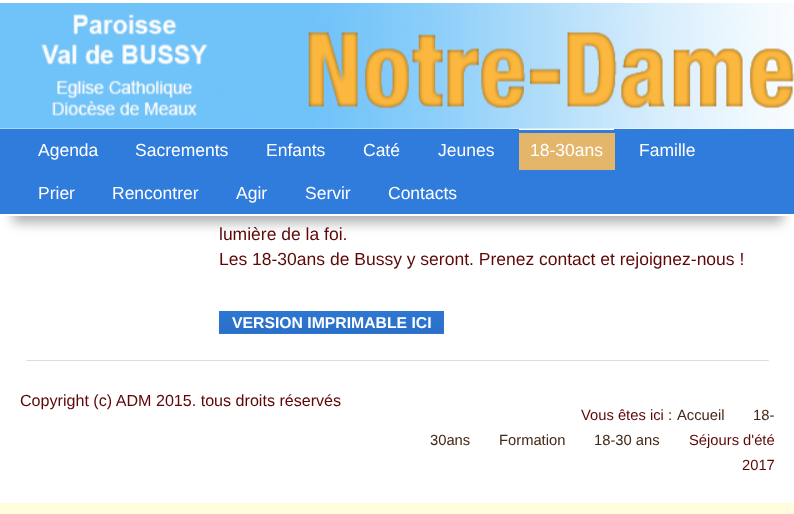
<?xml version="1.0" encoding="UTF-8"?>
<svg xmlns="http://www.w3.org/2000/svg" width="794" height="514">
    <defs>
        <filter id="blur1" x="-50%" y="-200%" width="200%" height="500%"><feGaussianBlur stdDeviation="6"/></filter>
    </defs>
    <rect width="100%" height="100%" fill="#FFFDDE"/>
    <rect x="0" y="216" width="794" height="287" fill="#FFFFFF"/>
    <rect x="13" y="31" width="770" height="192" fill="#000000" fill-opacity="0.3" filter="url(#blur1)"/>
    <rect x="0" y="0" width="794" height="216" fill="#FFFFFF"/>
    <image x="0" y="3" width="794" height="126" href="img_01.png"/>
    <rect x="0" y="129" width="794" height="85" fill="#307CDC"/>
    <rect x="519" y="129" width="95" height="1" fill="#FFFFFF"/>
    <text x="38" y="156" font-family="Liberation Sans" font-size="17.5" fill="#FFFFFF">Agenda</text>
    <text x="135" y="156" font-family="Liberation Sans" font-size="17.5" fill="#FFFFFF">Sacrements</text>
    <text x="266" y="156" font-family="Liberation Sans" font-size="17.5" fill="#FFFFFF">Enfants</text>
    <text x="363" y="156" font-family="Liberation Sans" font-size="17.5" fill="#FFFFFF">Caté</text>
    <text x="438" y="156" font-family="Liberation Sans" font-size="17.5" fill="#FFFFFF">Jeunes</text>
    <rect x="519" y="133" width="96" height="37" fill="#E4B66B"/>
    <text x="530" y="156" font-family="Liberation Sans" font-size="17.5" fill="#FFFFFF">18-30ans</text>
    <text x="639" y="156" font-family="Liberation Sans" font-size="17.5" fill="#FFFFFF">Famille</text>
    <text x="38" y="199" font-family="Liberation Sans" font-size="17.5" fill="#FFFFFF">Prier</text>
    <text x="112" y="199" font-family="Liberation Sans" font-size="17.5" fill="#FFFFFF">Rencontrer</text>
    <text x="236" y="199" font-family="Liberation Sans" font-size="17.5" fill="#FFFFFF">Agir</text>
    <text x="305" y="199" font-family="Liberation Sans" font-size="17.5" fill="#FFFFFF">Servir</text>
    <text x="388" y="199" font-family="Liberation Sans" font-size="17.5" fill="#FFFFFF">Contacts</text>
    <text font-family="Liberation Sans" font-size="17.5" fill="#5E0707">
        <tspan x="219" y="240">lumière de la foi.</tspan>
        <tspan x="219" y="265">Les 18-30ans de Bussy y seront. Prenez contact et rejoignez-nous !</tspan>
    </text>
    <rect x="219" y="311" width="225" height="23" fill="#307CDC"/>
    <image x="218" y="311" width="226" height="23" href="img_02.png"/>
    <text x="232" y="328" font-family="Liberation Sans" font-size="15.75" font-weight="700" fill="#FFFFFF">VERSION IMPRIMABLE ICI</text>
    <image x="26" y="360" width="743" height="1" href="img_03.png"/>
    <text x="20" y="406" font-family="Liberation Sans" font-size="16.1" fill="#5E0707">Copyright (c) ADM 2015. tous droits réservés</text>
    <text x="581" y="420" font-family="Liberation Sans" font-size="14.75" fill="#5E0707">Vous êtes ici :</text>
    <text x="677" y="420" font-family="Liberation Sans" font-size="14.75" fill="#452815">Accueil</text>
    <text x="753" y="420" font-family="Liberation Sans" font-size="14.75" fill="#452815">18-</text>
    <text x="430" y="445" font-family="Liberation Sans" font-size="14.75" fill="#452815">30ans</text>
    <text x="499" y="445" font-family="Liberation Sans" font-size="14.75" fill="#452815">Formation</text>
    <text x="594" y="445" font-family="Liberation Sans" font-size="14.75" fill="#452815">18-30 ans</text>
    <text x="689" y="445" font-family="Liberation Sans" font-size="14.75" fill="#5E0707">Séjours d'été</text>
    <text x="742" y="470" font-family="Liberation Sans" font-size="14.75" fill="#5E0707">2017</text>
</svg>
